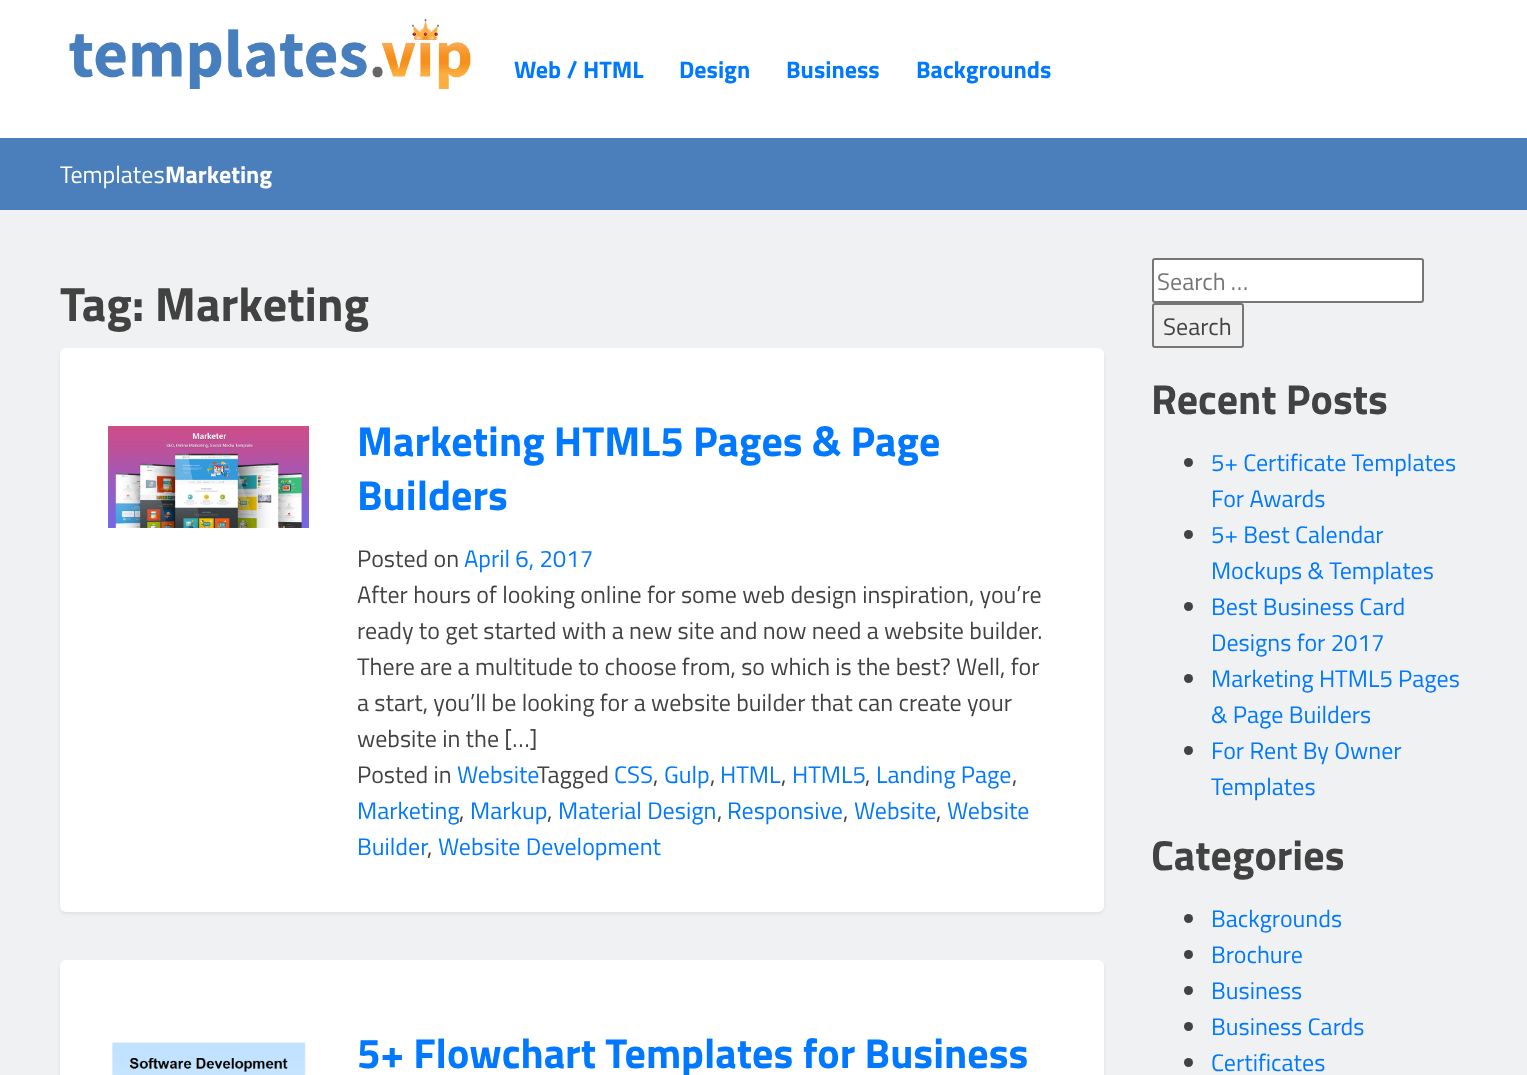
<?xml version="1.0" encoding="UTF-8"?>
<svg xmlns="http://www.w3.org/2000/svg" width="1527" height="1075">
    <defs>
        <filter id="blur1" x="-50%" y="-200%" width="200%" height="500%"><feGaussianBlur stdDeviation="1.5"/></filter>
    </defs>
    <rect width="100%" height="100%" fill="#EFF1F2"/>
    <rect x="0" y="0" width="1527" height="138" fill="#FFFFFF"/>
    <image x="69" y="19" width="402" height="70" href="img_01.png"/>
    <text x="514" y="78" font-family="Titillium Web" font-size="24" font-weight="700" fill="#0078FF">Web / HTML</text>
    <text x="679" y="78" font-family="Titillium Web" font-size="24" font-weight="700" fill="#0078FF">Design</text>
    <text x="786" y="78" font-family="Titillium Web" font-size="24" font-weight="700" fill="#0078FF">Business</text>
    <text x="916" y="78" font-family="Titillium Web" font-size="24" font-weight="700" fill="#0078FF">Backgrounds</text>
    <rect x="0" y="138" width="1527" height="72" fill="#4A7FBB"/>
    <text x="60" y="183" font-family="Titillium Web" font-size="24" fill="#FFFFFF">Templates</text>
    <text x="165" y="183" font-family="Titillium Web" font-size="24" font-weight="700" fill="#FFFFFF">Marketing</text>
    <text x="60" y="321" font-family="Titillium Web" font-size="48" font-weight="700" fill="#424242">Tag: Marketing</text>
    <rect x="60" y="350" width="1044" height="564" rx="6" fill="#000000" fill-opacity="0.07" filter="url(#blur1)"/>
    <rect x="60" y="348" width="1044" height="564" rx="6" fill="#FFFFFF"/>
    <image x="108" y="426" width="201" height="102" href="img_02.png"/>
    <text font-family="Titillium Web" font-size="42" font-weight="700" fill="#0078FF">
        <tspan x="357" y="456">Marketing HTML5 Pages &amp; Page</tspan>
        <tspan x="357" y="510">Builders</tspan>
    </text>
    <text x="357" y="567" font-family="Titillium Web" font-size="24" fill="#424242">Posted on</text>
    <text x="464" y="567" font-family="Titillium Web" font-size="24" fill="#0078FF">April 6, 2017</text>
    <text font-family="Titillium Web" font-size="24" fill="#424242">
        <tspan x="357" y="603">After hours of looking online for some web design inspiration, you’re</tspan>
        <tspan x="357" y="639">ready to get started with a new site and now need a website builder.</tspan>
        <tspan x="357" y="675">There are a multitude to choose from, so which is the best? Well, for</tspan>
        <tspan x="357" y="711">a start, you’ll be looking for a website builder that can create your</tspan>
        <tspan x="357" y="747">website in the […]</tspan>
        <tspan x="357" y="783">Posted in</tspan>
    </text>
    <text x="457" y="783" font-family="Titillium Web" font-size="24" fill="#0078FF">Website</text>
    <text x="537" y="783" font-family="Titillium Web" font-size="24" fill="#424242">Tagged</text>
    <text x="614" y="783" font-family="Titillium Web" font-size="24" fill="#0078FF">CSS</text>
    <text x="653" y="783" font-family="Titillium Web" font-size="24" fill="#424242">,</text>
    <text x="664" y="783" font-family="Titillium Web" font-size="24" fill="#0078FF">Gulp</text>
    <text x="710" y="783" font-family="Titillium Web" font-size="24" fill="#424242">,</text>
    <text x="720" y="783" font-family="Titillium Web" font-size="24" fill="#0078FF">HTML</text>
    <text x="781" y="783" font-family="Titillium Web" font-size="24" fill="#424242">,</text>
    <text x="792" y="783" font-family="Titillium Web" font-size="24" fill="#0078FF">HTML5</text>
    <text x="865" y="783" font-family="Titillium Web" font-size="24" fill="#424242">,</text>
    <text x="876" y="783" font-family="Titillium Web" font-size="24" fill="#0078FF">Landing Page</text>
    <text x="1012" y="783" font-family="Titillium Web" font-size="24" fill="#424242">,</text>
    <text x="357" y="819" font-family="Titillium Web" font-size="24" fill="#0078FF">Marketing</text>
    <text x="459" y="819" font-family="Titillium Web" font-size="24" fill="#424242">,</text>
    <text x="470" y="819" font-family="Titillium Web" font-size="24" fill="#0078FF">Markup</text>
    <text x="547" y="819" font-family="Titillium Web" font-size="24" fill="#424242">,</text>
    <text x="558" y="819" font-family="Titillium Web" font-size="24" fill="#0078FF">Material Design</text>
    <text x="717" y="819" font-family="Titillium Web" font-size="24" fill="#424242">,</text>
    <text x="727" y="819" font-family="Titillium Web" font-size="24" fill="#0078FF">Responsive</text>
    <text x="843" y="819" font-family="Titillium Web" font-size="24" fill="#424242">,</text>
    <text x="854" y="819" font-family="Titillium Web" font-size="24" fill="#0078FF">Website</text>
    <text x="936" y="819" font-family="Titillium Web" font-size="24" fill="#424242">,</text>
    <text x="947" y="819" font-family="Titillium Web" font-size="24" fill="#0078FF">Website</text>
    <text x="357" y="855" font-family="Titillium Web" font-size="24" fill="#0078FF">Builder</text>
    <text x="427" y="855" font-family="Titillium Web" font-size="24" fill="#424242">,</text>
    <text x="438" y="855" font-family="Titillium Web" font-size="24" fill="#0078FF">Website Development</text>
    <rect x="60" y="962" width="1044" height="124" rx="6" fill="#000000" fill-opacity="0.07" filter="url(#blur1)"/>
    <rect x="60" y="960" width="1044" height="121" rx="6" fill="#FFFFFF"/>
    <image x="112" y="1042" width="194" height="33" href="img_03.png"/>
    <text x="357" y="1068" font-family="Titillium Web" font-size="42" font-weight="700" fill="#0078FF">5+ Flowchart Templates for Business</text>
    <rect x="1153" y="259" width="270" height="43" rx="2" fill="#FFFFFF" stroke="#767676" stroke-width="2"/>
    <text x="1157" y="290" font-family="Titillium Web" font-size="24" fill="#757575">Search …</text>
    <rect x="1153" y="304" width="90" height="43" rx="2" fill="#EFEFEF" stroke="#767676" stroke-width="2"/>
    <text x="1163" y="335" font-family="Titillium Web" font-size="24" fill="#424242">Search</text>
    <text x="1151" y="414" font-family="Titillium Web" font-size="42" font-weight="700" fill="#424242">Recent Posts</text>
    <circle cx="1188.5" cy="462.5" r="4.5" fill="#424242"/>
    <text font-family="Titillium Web" font-size="24" fill="#0078FF">
        <tspan x="1211" y="471">5+ Certificate Templates</tspan>
        <tspan x="1211" y="507">For Awards</tspan>
    </text>
    <circle cx="1188.5" cy="534.5" r="4.5" fill="#424242"/>
    <text font-family="Titillium Web" font-size="24" fill="#0078FF">
        <tspan x="1211" y="543">5+ Best Calendar</tspan>
        <tspan x="1211" y="579">Mockups &amp; Templates</tspan>
    </text>
    <circle cx="1188.5" cy="606.5" r="4.5" fill="#424242"/>
    <text font-family="Titillium Web" font-size="24" fill="#0078FF">
        <tspan x="1211" y="615">Best Business Card</tspan>
        <tspan x="1211" y="651">Designs for 2017</tspan>
    </text>
    <circle cx="1188.5" cy="678.5" r="4.5" fill="#424242"/>
    <text font-family="Titillium Web" font-size="24" fill="#0078FF">
        <tspan x="1211" y="687">Marketing HTML5 Pages</tspan>
        <tspan x="1211" y="723">&amp; Page Builders</tspan>
    </text>
    <circle cx="1188.5" cy="750.5" r="4.5" fill="#424242"/>
    <text font-family="Titillium Web" font-size="24" fill="#0078FF">
        <tspan x="1211" y="759">For Rent By Owner</tspan>
        <tspan x="1211" y="795">Templates</tspan>
    </text>
    <text x="1151" y="870" font-family="Titillium Web" font-size="42" font-weight="700" fill="#424242">Categories</text>
    <circle cx="1188.5" cy="918.5" r="4.5" fill="#424242"/>
    <text x="1211" y="927" font-family="Titillium Web" font-size="24" fill="#0078FF">Backgrounds</text>
    <circle cx="1188.5" cy="954.5" r="4.5" fill="#424242"/>
    <text x="1211" y="963" font-family="Titillium Web" font-size="24" fill="#0078FF">Brochure</text>
    <circle cx="1188.5" cy="990.5" r="4.5" fill="#424242"/>
    <text x="1211" y="999" font-family="Titillium Web" font-size="24" fill="#0078FF">Business</text>
    <circle cx="1188.5" cy="1026.5" r="4.5" fill="#424242"/>
    <text x="1211" y="1035" font-family="Titillium Web" font-size="24" fill="#0078FF">Business Cards</text>
    <circle cx="1188.5" cy="1062.5" r="4.5" fill="#424242"/>
    <text x="1211" y="1071" font-family="Titillium Web" font-size="24" fill="#0078FF">Certificates</text>
</svg>
